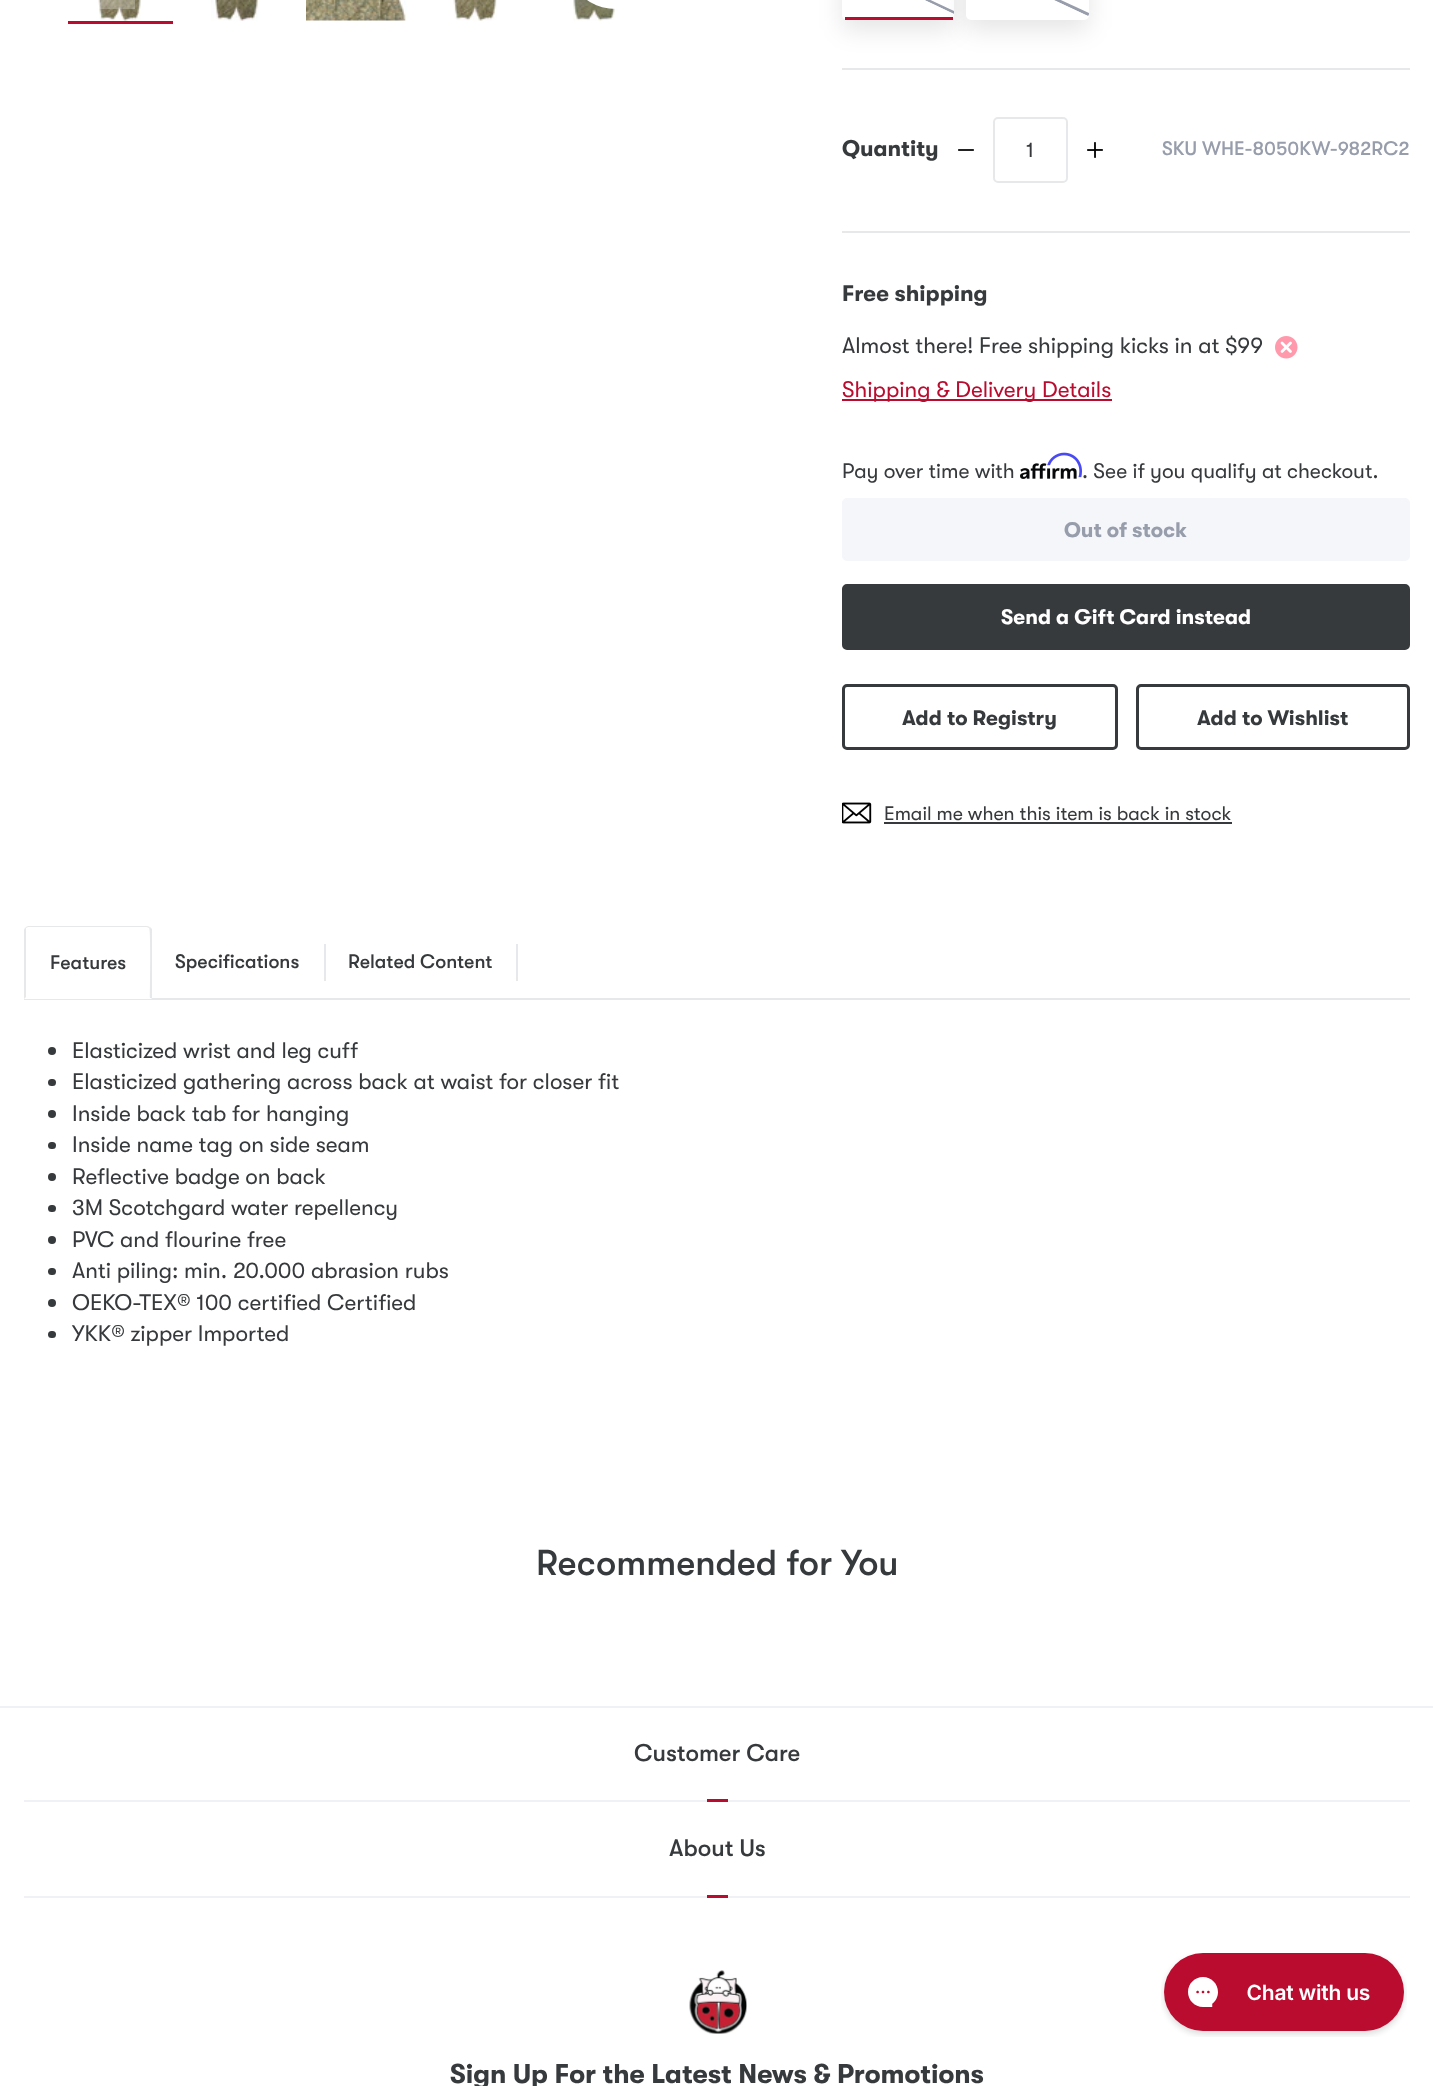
<?xml version="1.0" encoding="UTF-8"?>
<svg xmlns="http://www.w3.org/2000/svg" width="1433" height="2086">
    <defs>
        <filter id="blur1" x="-50%" y="-200%" width="200%" height="500%"><feGaussianBlur stdDeviation="12"/></filter>
    </defs>
    <rect width="100%" height="100%" fill="#FFFFFF"/>
    <image x="98" y="0" width="43" height="21" href="img_01.png"/>
    <rect x="98" y="0" width="37" height="9" fill="#FFFFFF" fill-opacity="0.25"/>
    <image x="573" y="0" width="44" height="21" href="img_05.png"/>
    <rect x="579" y="-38" width="75" height="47" rx="37.5" fill="#FFFFFF"/>
    <rect x="68" y="21" width="105" height="3" fill="#BA0C2F"/>
    <image x="211" y="0" width="48" height="21" href="img_02.png"/>
    <image x="306" y="0" width="101" height="21" href="img_03.png"/>
    <image x="453" y="0" width="44" height="21" href="img_04.png"/>
    <rect x="842" y="-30" width="112" height="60" rx="5" fill="#000000" fill-opacity="0.1" filter="url(#blur1)"/>
    <rect x="842" y="-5" width="112" height="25" rx="5" fill="#FFFFFF"/>
    <rect x="845" y="17" width="108" height="3" fill="#BA0C2F"/>
    <path d="M 954 14 V 11 L 845 -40 L 842 -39 Z" fill="#979DAB"/>
    <path d="M 842 -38 V -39 L 954 14 C 954 15 954 16 952 16 L 842 -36 Z" fill="#FFFFFF"/>
    <rect x="966" y="-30" width="123" height="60" rx="5" fill="#000000" fill-opacity="0.1" filter="url(#blur1)"/>
    <rect x="966" y="-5" width="123" height="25" rx="5" fill="#FFFFFF"/>
    <path d="M 970 -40 H 974 L 1089 13 C 1089 14 1089 15 1088 16 L 968 -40 Z" fill="#979DAB"/>
    <path d="M 1084 16 L 966 -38 L 968 -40 L 1088 16 Z" fill="#FFFFFF"/>
    <rect x="842" y="68" width="568" height="2" fill="#E7E8EA"/>
    <rect x="842" y="231" width="568" height="2" fill="#E7E8EA"/>
    <text x="842" y="156" font-family="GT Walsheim" font-size="22.5" font-weight="700" fill="#373A3C">Quantity</text>
    <image x="958" y="149" width="16" height="2" href="img_06.png"/>
    <rect x="994" y="118" width="73" height="64" rx="4" fill="none" stroke="#E7E8EA" stroke-width="2"/>
    <text x="1026" y="157" font-family="GT Walsheim" font-size="21" fill="#373A3C">1</text>
    <image x="1087" y="142" width="16" height="16" href="img_07.png"/>
    <text x="1162" y="155" font-family="GT Walsheim" font-size="19.5" font-weight="500" fill="#979DAB">SKU WHE-8050KW-982RC2</text>
    <text x="842" y="301" font-family="GT Walsheim" font-size="22.5" font-weight="700" fill="#373A3C">Free shipping</text>
    <text x="842" y="353" font-family="GT Walsheim" font-size="22.5" fill="#373A3C">Almost there! Free shipping kicks in at $99</text>
    <image x="1275" y="336" width="23" height="23" href="img_08.png"/>
    <rect x="842" y="399" width="270" height="2" fill="#BA0C2F"/>
    <text x="842" y="397" font-family="GT Walsheim" font-size="22.5" fill="#BA0C2F">Shipping &amp; Delivery Details</text>
    <text x="842" y="478" font-family="GT Walsheim" font-size="21" fill="#373A3C">Pay over time with</text>
    <image x="1020" y="463" width="57" height="16" href="img_10.png"/>
    <image x="1047" y="452" width="35" height="26" href="img_09.png"/>
    <text x="1082" y="478" font-family="GT Walsheim" font-size="21" fill="#373A3C">. See if you qualify at checkout.</text>
    <rect x="843" y="499" width="566" height="61" rx="4" fill="#F4F6FA" stroke="#F4F6FA" stroke-width="2"/>
    <text x="1064" y="537" font-family="GT Walsheim" font-size="21" font-weight="700" fill="#979DAB">Out of stock</text>
    <rect x="843.5" y="585.5" width="565" height="63" rx="3.5" fill="#373A3C" stroke="#373A3C" stroke-width="3"/>
    <text x="1001" y="624" font-family="GT Walsheim" font-size="21" font-weight="700" fill="#FFFFFF">Send a Gift Card instead</text>
    <rect x="843.5" y="685.5" width="273" height="63" rx="3.5" fill="none" stroke="#373A3C" stroke-width="3"/>
    <text x="902" y="725" font-family="GT Walsheim" font-size="21" font-weight="700" fill="#373A3C">Add to Registry</text>
    <rect x="1137.5" y="685.5" width="271" height="63" rx="3.5" fill="none" stroke="#373A3C" stroke-width="3"/>
    <text x="1197" y="725" font-family="GT Walsheim" font-size="21" font-weight="700" fill="#373A3C">Add to Wishlist</text>
    <image x="842" y="802" width="30" height="22" href="img_11.png"/>
    <text x="884" y="820" font-family="GT Walsheim" font-size="19.5" fill="#373A3C">Email me when this item is back in stock</text>
    <rect x="884" y="822" width="348" height="2" fill="#373A3C"/>
    <rect x="24" y="998" width="1386" height="2" fill="#E7E8EA"/>
    <path d="M 29 926 H 147 C 150 926 152 928 152 931 V 999 H 24 V 931 C 24 928 26 926 29 926 Z" fill="#FFFFFF"/>
    <path d="M 28 926 L 26 927 V 928 L 28 927 H 147 L 149 928 L 150 927 L 147 926 Z" fill="#E7E8EA"/>
    <path d="M 152 929 V 999 L 150 998 C 150 990 151 929 149 928 L 150 927 Z" fill="#E7E8EA"/>
    <path d="M 152 999 L 150 998 H 26 V 997 L 24 999 Z" fill="#FFFFFF"/>
    <path d="M 24 999 L 26 997 V 930 V 928 V 927 C 25 928 24 929 24 930 Z" fill="#E7E8EA"/>
    <text x="50" y="969" font-family="GT Walsheim" font-size="19.5" font-weight="500" fill="#373A3C">Features</text>
    <text x="175" y="968" font-family="GT Walsheim" font-size="19.5" font-weight="500" fill="#373A3C">Specifications</text>
    <rect x="324" y="944" width="2" height="37" fill="#E7E8EA"/>
    <text x="348" y="968" font-family="GT Walsheim" font-size="19.5" font-weight="500" fill="#373A3C">Related Content</text>
    <rect x="516" y="944" width="2" height="37" fill="#E7E8EA"/>
    <circle cx="52" cy="1051" r="4" fill="#373A3C"/>
    <text x="72" y="1058" font-family="GT Walsheim" font-size="22.5" fill="#373A3C">Elasticized wrist and leg cuff</text>
    <rect x="48" y="1079" width="8" height="7" rx="3.5" fill="#373A3C"/>
    <text x="72" y="1089" font-family="GT Walsheim" font-size="22.5" fill="#373A3C">Elasticized gathering across back at waist for closer fit</text>
    <circle cx="52" cy="1114" r="4" fill="#373A3C"/>
    <text x="72" y="1121" font-family="GT Walsheim" font-size="22.5" fill="#373A3C">Inside back tab for hanging</text>
    <rect x="48" y="1142" width="8" height="7" rx="3.5" fill="#373A3C"/>
    <text x="72" y="1152" font-family="GT Walsheim" font-size="22.5" fill="#373A3C">Inside name tag on side seam</text>
    <circle cx="52" cy="1177" r="4" fill="#373A3C"/>
    <text x="72" y="1184" font-family="GT Walsheim" font-size="22.5" fill="#373A3C">Reflective badge on back</text>
    <rect x="48" y="1205" width="8" height="7" rx="3.5" fill="#373A3C"/>
    <text x="72" y="1215" font-family="GT Walsheim" font-size="22.5" fill="#373A3C">3M Scotchgard water repellency</text>
    <circle cx="52" cy="1240" r="4" fill="#373A3C"/>
    <text x="72" y="1247" font-family="GT Walsheim" font-size="22.5" fill="#373A3C">PVC and flourine free</text>
    <rect x="48" y="1268" width="8" height="7" rx="3.5" fill="#373A3C"/>
    <text x="72" y="1278" font-family="GT Walsheim" font-size="22.5" fill="#373A3C">Anti piling: min. 20.000 abrasion rubs</text>
    <circle cx="52" cy="1303" r="4" fill="#373A3C"/>
    <text x="72" y="1310" font-family="GT Walsheim" font-size="22.5" fill="#373A3C">OEKO-TEX® 100 certified Certified</text>
    <rect x="48" y="1331" width="8" height="7" rx="3.5" fill="#373A3C"/>
    <text x="72" y="1341" font-family="GT Walsheim" font-size="22.5" fill="#373A3C">YKK® zipper Imported</text>
    <text x="536" y="1575" font-family="GT Walsheim" font-size="36" font-weight="500" fill="#373A3C">Recommended for You</text>
    <rect x="0" y="1706" width="1433" height="2" fill="#EFF1F4"/>
    <rect x="24" y="1800" width="1386" height="2" fill="#EFF1F4"/>
    <text x="634" y="1761" font-family="GT Walsheim" font-size="24" font-weight="500" fill="#373A3C">Customer Care</text>
    <rect x="707" y="1799" width="21" height="3" fill="#BA0C2F"/>
    <rect x="24" y="1896" width="1386" height="2" fill="#EFF1F4"/>
    <text x="669" y="1856" font-family="GT Walsheim" font-size="24" font-weight="500" fill="#373A3C">About Us</text>
    <rect x="707" y="1895" width="21" height="3" fill="#BA0C2F"/>
    <image x="689" y="1970" width="58" height="64" href="img_12.png"/>
    <text x="450" y="2083" font-family="GT Walsheim" font-size="27" font-weight="700" fill="#373A3C">Sign Up For the Latest News &amp; Promotions</text>
    <image x="1161" y="1953" width="246" height="84" href="img_13.png"/>
</svg>
